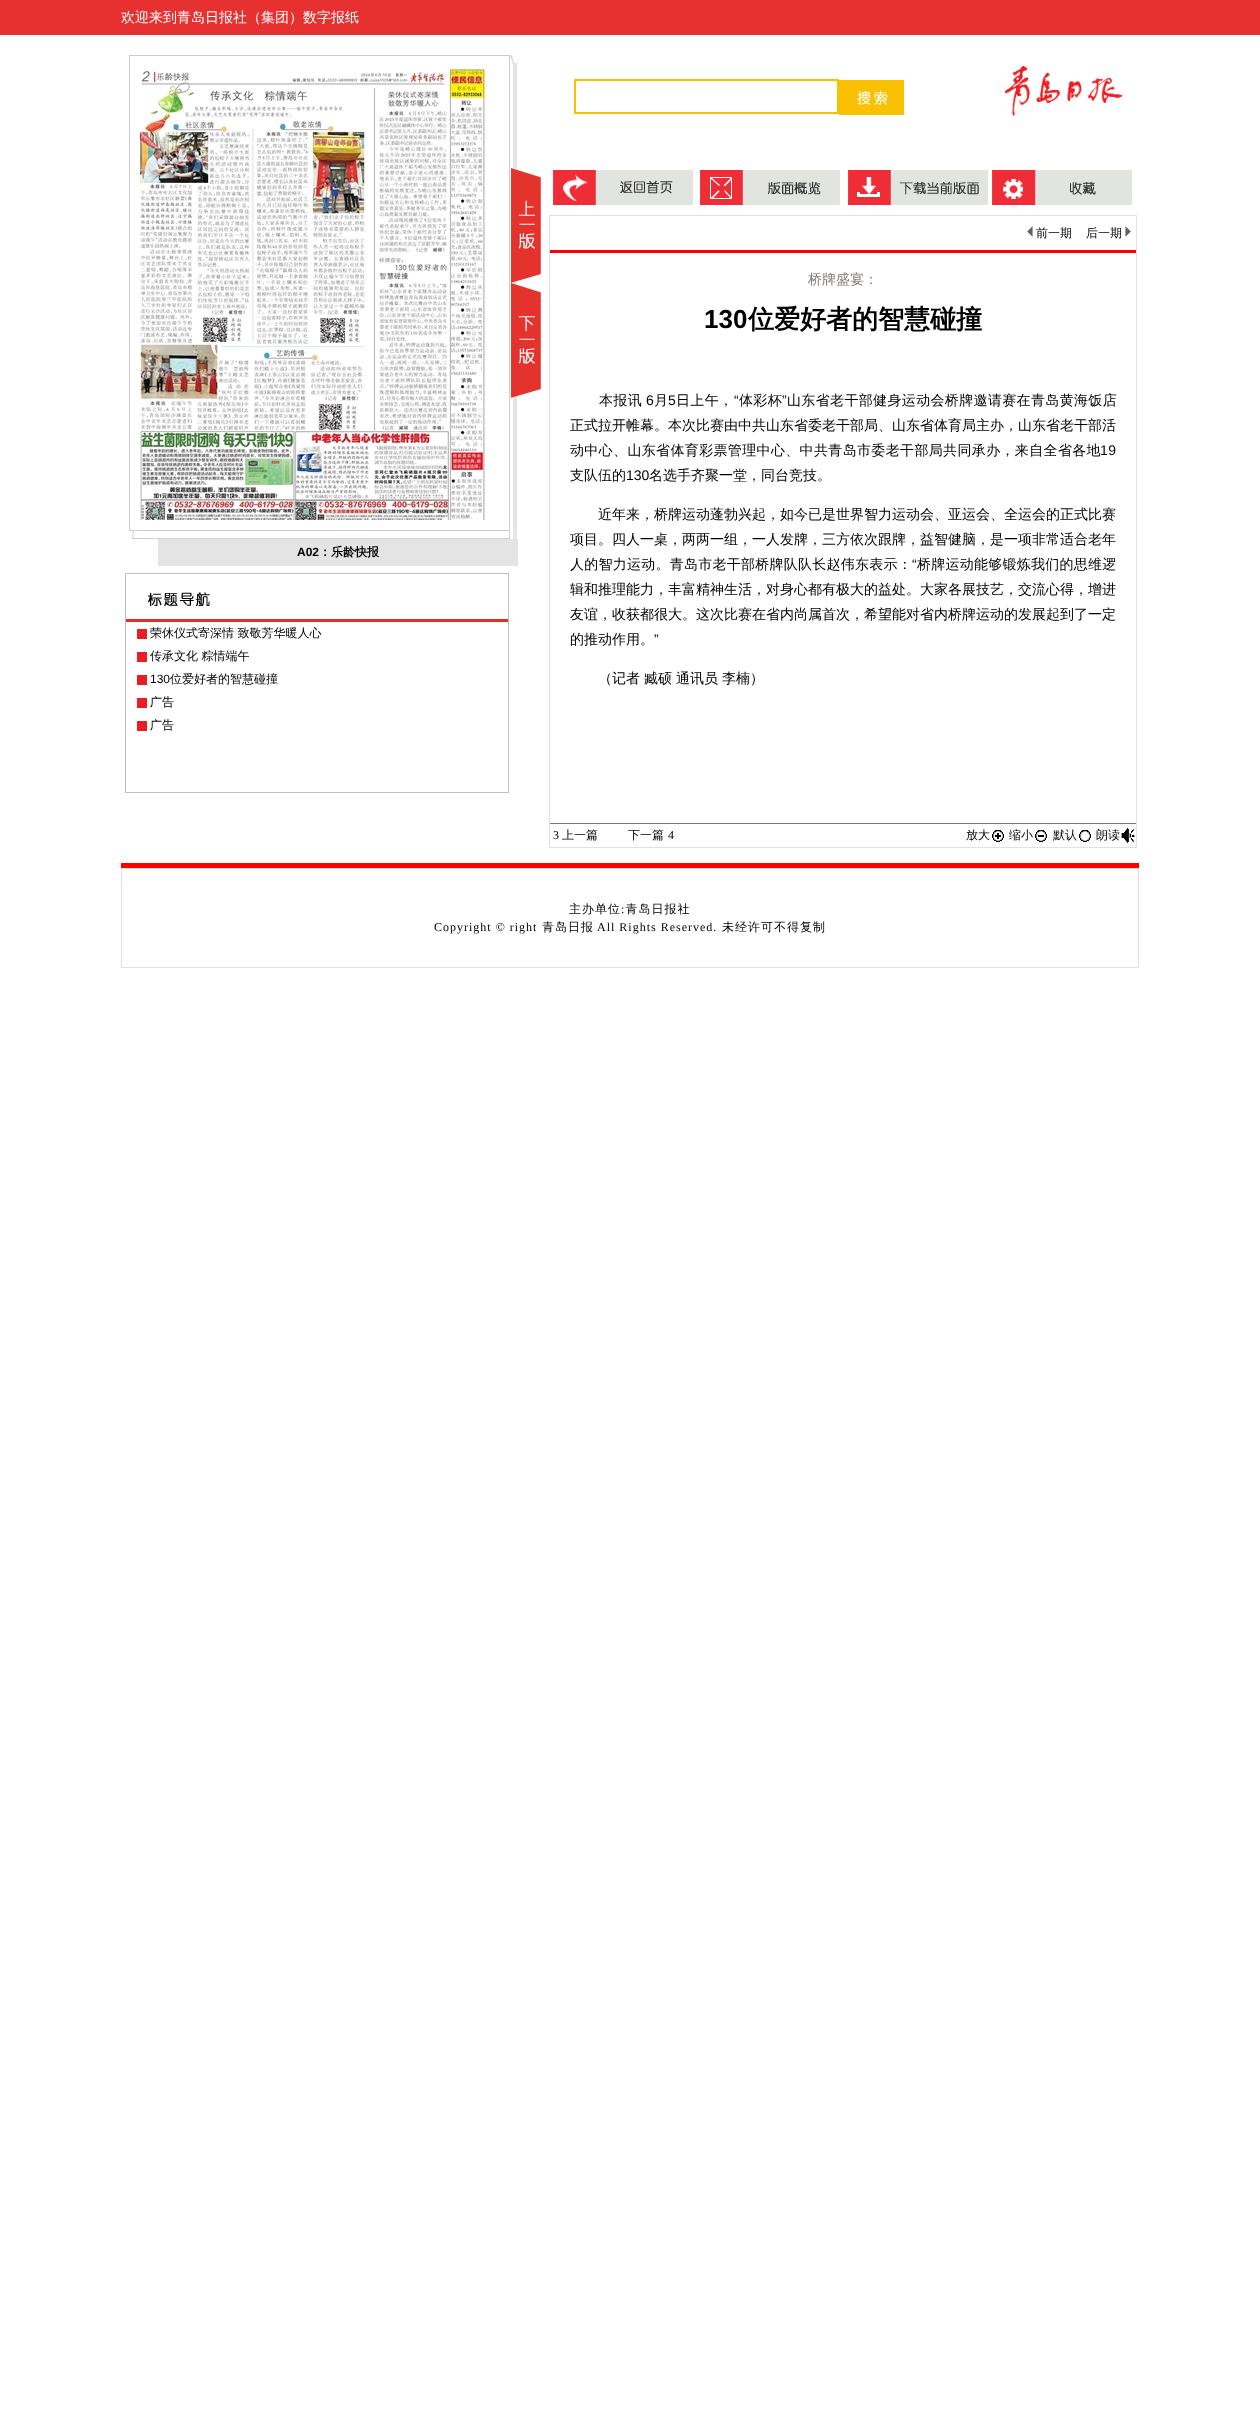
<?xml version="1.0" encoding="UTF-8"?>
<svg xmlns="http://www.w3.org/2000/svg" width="1260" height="2419">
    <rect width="100%" height="100%" fill="#FFFFFF"/>
    <image x="0" y="35" width="1260" height="2384" href="img_01.png"/>
    <rect x="0" y="0" width="1260" height="35" fill="#E73130"/>
    <text x="121" y="22" font-family="WenQuanYi Zen Hei" font-size="14" font-weight="500" fill="#FFFFFF">欢迎来到青岛日报社（集团）数字报纸</text>
    <rect x="129" y="35" width="381" height="4" fill="#FFFFFF"/>
    <image x="510" y="37" width="32" height="494" href="img_02.png"/>
    <image x="511" y="168" width="30" height="115" href="img_03.png"/>
    <image x="511" y="283" width="30" height="115" href="img_04.png"/>
    <rect x="129.5" y="55.5" width="380" height="475" fill="none" stroke="#CCCCCC"/>
    <image x="140" y="66" width="347" height="454" href="img_05.png"/>
    <image x="131" y="531" width="379" height="8" href="img_06.png"/>
    <rect x="513" y="531" width="4" height="8" fill="#E5E5E5"/>
    <rect x="158" y="539" width="360" height="27" fill="#E4E4E4"/>
    <text x="297" y="556" font-family="Liberation Sans" font-size="12" font-weight="700" fill="#000000">A02</text>
    <text x="319" y="556" font-family="WenQuanYi Zen Hei" font-size="12" font-weight="700" fill="#000000">：乐龄快报</text>
    <rect x="125.5" y="573.5" width="383" height="219" fill="none" stroke="#C0C0C0"/>
    <image x="126" y="592" width="382" height="30" href="img_07.png"/>
    <rect x="137" y="629" width="10" height="10" fill="#ED1C24"/>
    <text x="150" y="637" font-family="WenQuanYi Zen Hei" font-size="12" font-weight="500" fill="#000000">荣休仪式寄深情 致敬芳华暖人心</text>
    <rect x="137" y="652" width="10" height="10" fill="#ED1C24"/>
    <text x="150" y="660" font-family="WenQuanYi Zen Hei" font-size="12" font-weight="500" fill="#000000">传承文化 粽情端午</text>
    <rect x="137" y="675" width="10" height="10" fill="#ED1C24"/>
    <text x="150" y="683" font-family="Liberation Sans" font-size="12" fill="#000000">130</text>
    <text x="170" y="683" font-family="WenQuanYi Zen Hei" font-size="12" font-weight="500" fill="#000000">位爱好者的智慧碰撞</text>
    <rect x="137" y="698" width="10" height="10" fill="#ED1C24"/>
    <text x="150" y="706" font-family="WenQuanYi Zen Hei" font-size="12" font-weight="500" fill="#000000">广告</text>
    <rect x="137" y="721" width="10" height="10" fill="#ED1C24"/>
    <text x="150" y="729" font-family="WenQuanYi Zen Hei" font-size="12" font-weight="500" fill="#000000">广告</text>
    <image x="574" y="79" width="265" height="35" href="img_08.png"/>
    <image x="839" y="80" width="65" height="35" href="img_09.png"/>
    <image x="1004" y="65" width="119" height="51" href="img_10.png"/>
    <image x="553" y="170" width="140" height="35" href="img_11.png"/>
    <image x="700" y="170" width="140" height="35" href="img_12.png"/>
    <image x="848" y="170" width="140" height="35" href="img_13.png"/>
    <image x="992" y="170" width="140" height="35" href="img_14.png"/>
    <rect x="549.5" y="215.5" width="587" height="632" fill="none" stroke="#E1E1E1"/>
    <rect x="550" y="250" width="586" height="3" fill="#FF0000"/>
    <image x="1027" y="226" width="6" height="11" href="img_15.png"/>
    <text x="1036" y="237" font-family="WenQuanYi Zen Hei" font-size="12" font-weight="500" fill="#000000">前一期</text>
    <text x="1086" y="237" font-family="WenQuanYi Zen Hei" font-size="12" font-weight="500" fill="#000000">后一期</text>
    <image x="1125" y="226" width="6" height="11" href="img_16.png"/>
    <text x="808" y="284" font-family="WenQuanYi Zen Hei" font-size="14" font-weight="500" fill="#827E7B">桥牌盛宴：</text>
    <text x="704" y="328" font-family="Liberation Sans" font-size="26" font-weight="700" fill="#000000">130</text>
    <text x="748" y="328" font-family="WenQuanYi Zen Hei" font-size="26" font-weight="700" fill="#000000">位爱好者的智慧碰撞</text>
    <text x="599" y="405" font-family="WenQuanYi Zen Hei" font-size="14" font-weight="500" letter-spacing="0.35" fill="#000000">本报讯</text>
    <text x="646" y="405" font-family="Liberation Sans" font-size="14" letter-spacing="0.35" fill="#000000">6</text>
    <text x="654" y="405" font-family="WenQuanYi Zen Hei" font-size="14" font-weight="500" letter-spacing="0.35" fill="#000000">月</text>
    <text x="668" y="405" font-family="Liberation Sans" font-size="14" letter-spacing="0.35" fill="#000000">5</text>
    <text x="676" y="405" font-family="WenQuanYi Zen Hei" font-size="14" font-weight="500" letter-spacing="0.35" fill="#000000">日上午，</text>
    <text x="734" y="405" font-family="Liberation Sans" font-size="14" letter-spacing="0.35" fill="#000000">“</text>
    <text x="739" y="405" font-family="WenQuanYi Zen Hei" font-size="14" font-weight="500" letter-spacing="0.35" fill="#000000">体彩杯</text>
    <text x="782" y="405" font-family="Liberation Sans" font-size="14" letter-spacing="0.35" fill="#000000">”</text>
    <text x="787" y="405" font-family="WenQuanYi Zen Hei" font-size="14" font-weight="500" letter-spacing="0.35" fill="#000000">山东省老干部健身运动会桥牌邀请赛在青岛黄海饭店</text>
    <text x="570" y="430" font-family="WenQuanYi Zen Hei" font-size="14" font-weight="500" fill="#000000">正式拉开帷幕。本次比赛由中共山东省委老干部局、山东省体育局主办，山东省老干部活</text>
    <text x="570" y="455" font-family="WenQuanYi Zen Hei" font-size="14" font-weight="500" letter-spacing="0.35" fill="#000000">动中心、山东省体育彩票管理中心、中共青岛市委老干部局共同承办，来自全省各地</text>
    <text x="1100" y="455" font-family="Liberation Sans" font-size="14" letter-spacing="0.35" fill="#000000">19</text>
    <text x="570" y="480" font-family="WenQuanYi Zen Hei" font-size="14" font-weight="500" fill="#000000">支队伍的</text>
    <text x="626" y="480" font-family="Liberation Sans" font-size="14" fill="#000000">130</text>
    <text x="649" y="480" font-family="WenQuanYi Zen Hei" font-size="14" font-weight="500" fill="#000000">名选手齐聚一堂，同台竞技。</text>
    <text x="598" y="519" font-family="WenQuanYi Zen Hei" font-size="14" font-weight="500" fill="#000000">近年来，桥牌运动蓬勃兴起，如今已是世界智力运动会、亚运会、全运会的正式比赛</text>
    <text x="570" y="544" font-family="WenQuanYi Zen Hei" font-size="14" font-weight="500" fill="#000000">项目。四人一桌，两两一组，一人发牌，三方依次跟牌，益智健脑，是一项非常适合老年</text>
    <text x="570" y="569" font-family="WenQuanYi Zen Hei" font-size="14" font-weight="500" letter-spacing="0.25" fill="#000000">人的智力运动。青岛市老干部桥牌队队长赵伟东表示：</text>
    <text x="912" y="569" font-family="Liberation Sans" font-size="14" letter-spacing="0.25" fill="#000000">“</text>
    <text x="917" y="569" font-family="WenQuanYi Zen Hei" font-size="14" font-weight="500" letter-spacing="0.25" fill="#000000">桥牌运动能够锻炼我们的思维逻</text>
    <text font-family="WenQuanYi Zen Hei" font-size="14" font-weight="500" fill="#000000">
        <tspan x="570" y="594">辑和推理能力，丰富精神生活，对身心都有极大的益处。大家各展技艺，交流心得，增进</tspan>
        <tspan x="570" y="619">友谊，收获都很大。这次比赛在省内尚属首次，希望能对省内桥牌运动的发展起到了一定</tspan>
        <tspan x="570" y="644">的推动作用。</tspan>
    </text>
    <text x="654" y="644" font-family="Liberation Sans" font-size="14" fill="#000000">”</text>
    <text x="598" y="683" font-family="WenQuanYi Zen Hei" font-size="14" font-weight="500" fill="#000000">（记者</text>
    <text x="644" y="683" font-family="WenQuanYi Zen Hei" font-size="14" font-weight="500" fill="#000000">臧硕</text>
    <text x="676" y="683" font-family="WenQuanYi Zen Hei" font-size="14" font-weight="500" fill="#000000">通讯员</text>
    <text x="722" y="683" font-family="WenQuanYi Zen Hei" font-size="14" font-weight="500" fill="#000000">李楠）</text>
    <rect x="550" y="823" width="586" height="1" fill="#787878"/>
    <text x="553" y="839" font-family="Liberation Serif" font-size="12" fill="#000000">3</text>
    <text x="562" y="839" font-family="WenQuanYi Zen Hei" font-size="12" font-weight="500" fill="#000000">上一篇</text>
    <text x="628" y="839" font-family="WenQuanYi Zen Hei" font-size="12" font-weight="500" fill="#000000">下一篇</text>
    <text x="668" y="839" font-family="Liberation Serif" font-size="12" fill="#000000">4</text>
    <text x="966" y="839" font-family="WenQuanYi Zen Hei" font-size="12" font-weight="500" fill="#000000">放大</text>
    <image x="992" y="830" width="12" height="12" href="img_17.png"/>
    <text x="1009" y="839" font-family="WenQuanYi Zen Hei" font-size="12" font-weight="500" fill="#000000">缩小</text>
    <image x="1035" y="830" width="12" height="12" href="img_18.png"/>
    <text x="1053" y="839" font-family="WenQuanYi Zen Hei" font-size="12" font-weight="500" fill="#000000">默认</text>
    <image x="1079" y="830" width="12" height="12" href="img_19.png"/>
    <text x="1096" y="839" font-family="WenQuanYi Zen Hei" font-size="12" font-weight="500" fill="#000000">朗读</text>
    <image x="1121" y="828" width="14" height="15" href="img_20.png"/>
    <rect x="121" y="863" width="1018" height="5" fill="#FF0000"/>
    <rect x="121.5" y="868.5" width="1017" height="99" fill="none" stroke="#E0E0E0"/>
    <text x="569" y="913" font-family="WenQuanYi Zen Hei" font-size="12" font-weight="500" letter-spacing="1" fill="#000000">主办单位 青岛日报社</text>
    <text x="621" y="913" font-family="Liberation Serif" font-size="12" letter-spacing="1" fill="#000000">:</text>
    <text x="434" y="931" font-family="Liberation Serif" font-size="12" letter-spacing="1" fill="#000000">Copyright © right</text>
    <text x="542" y="931" font-family="WenQuanYi Zen Hei" font-size="12" font-weight="500" letter-spacing="1" fill="#000000">青岛日报</text>
    <text x="597" y="931" font-family="Liberation Serif" font-size="12" letter-spacing="1" fill="#000000">All Rights Reserved.</text>
    <text x="722" y="931" font-family="WenQuanYi Zen Hei" font-size="12" font-weight="500" letter-spacing="1" fill="#000000">未经许可不得复制</text>
</svg>
